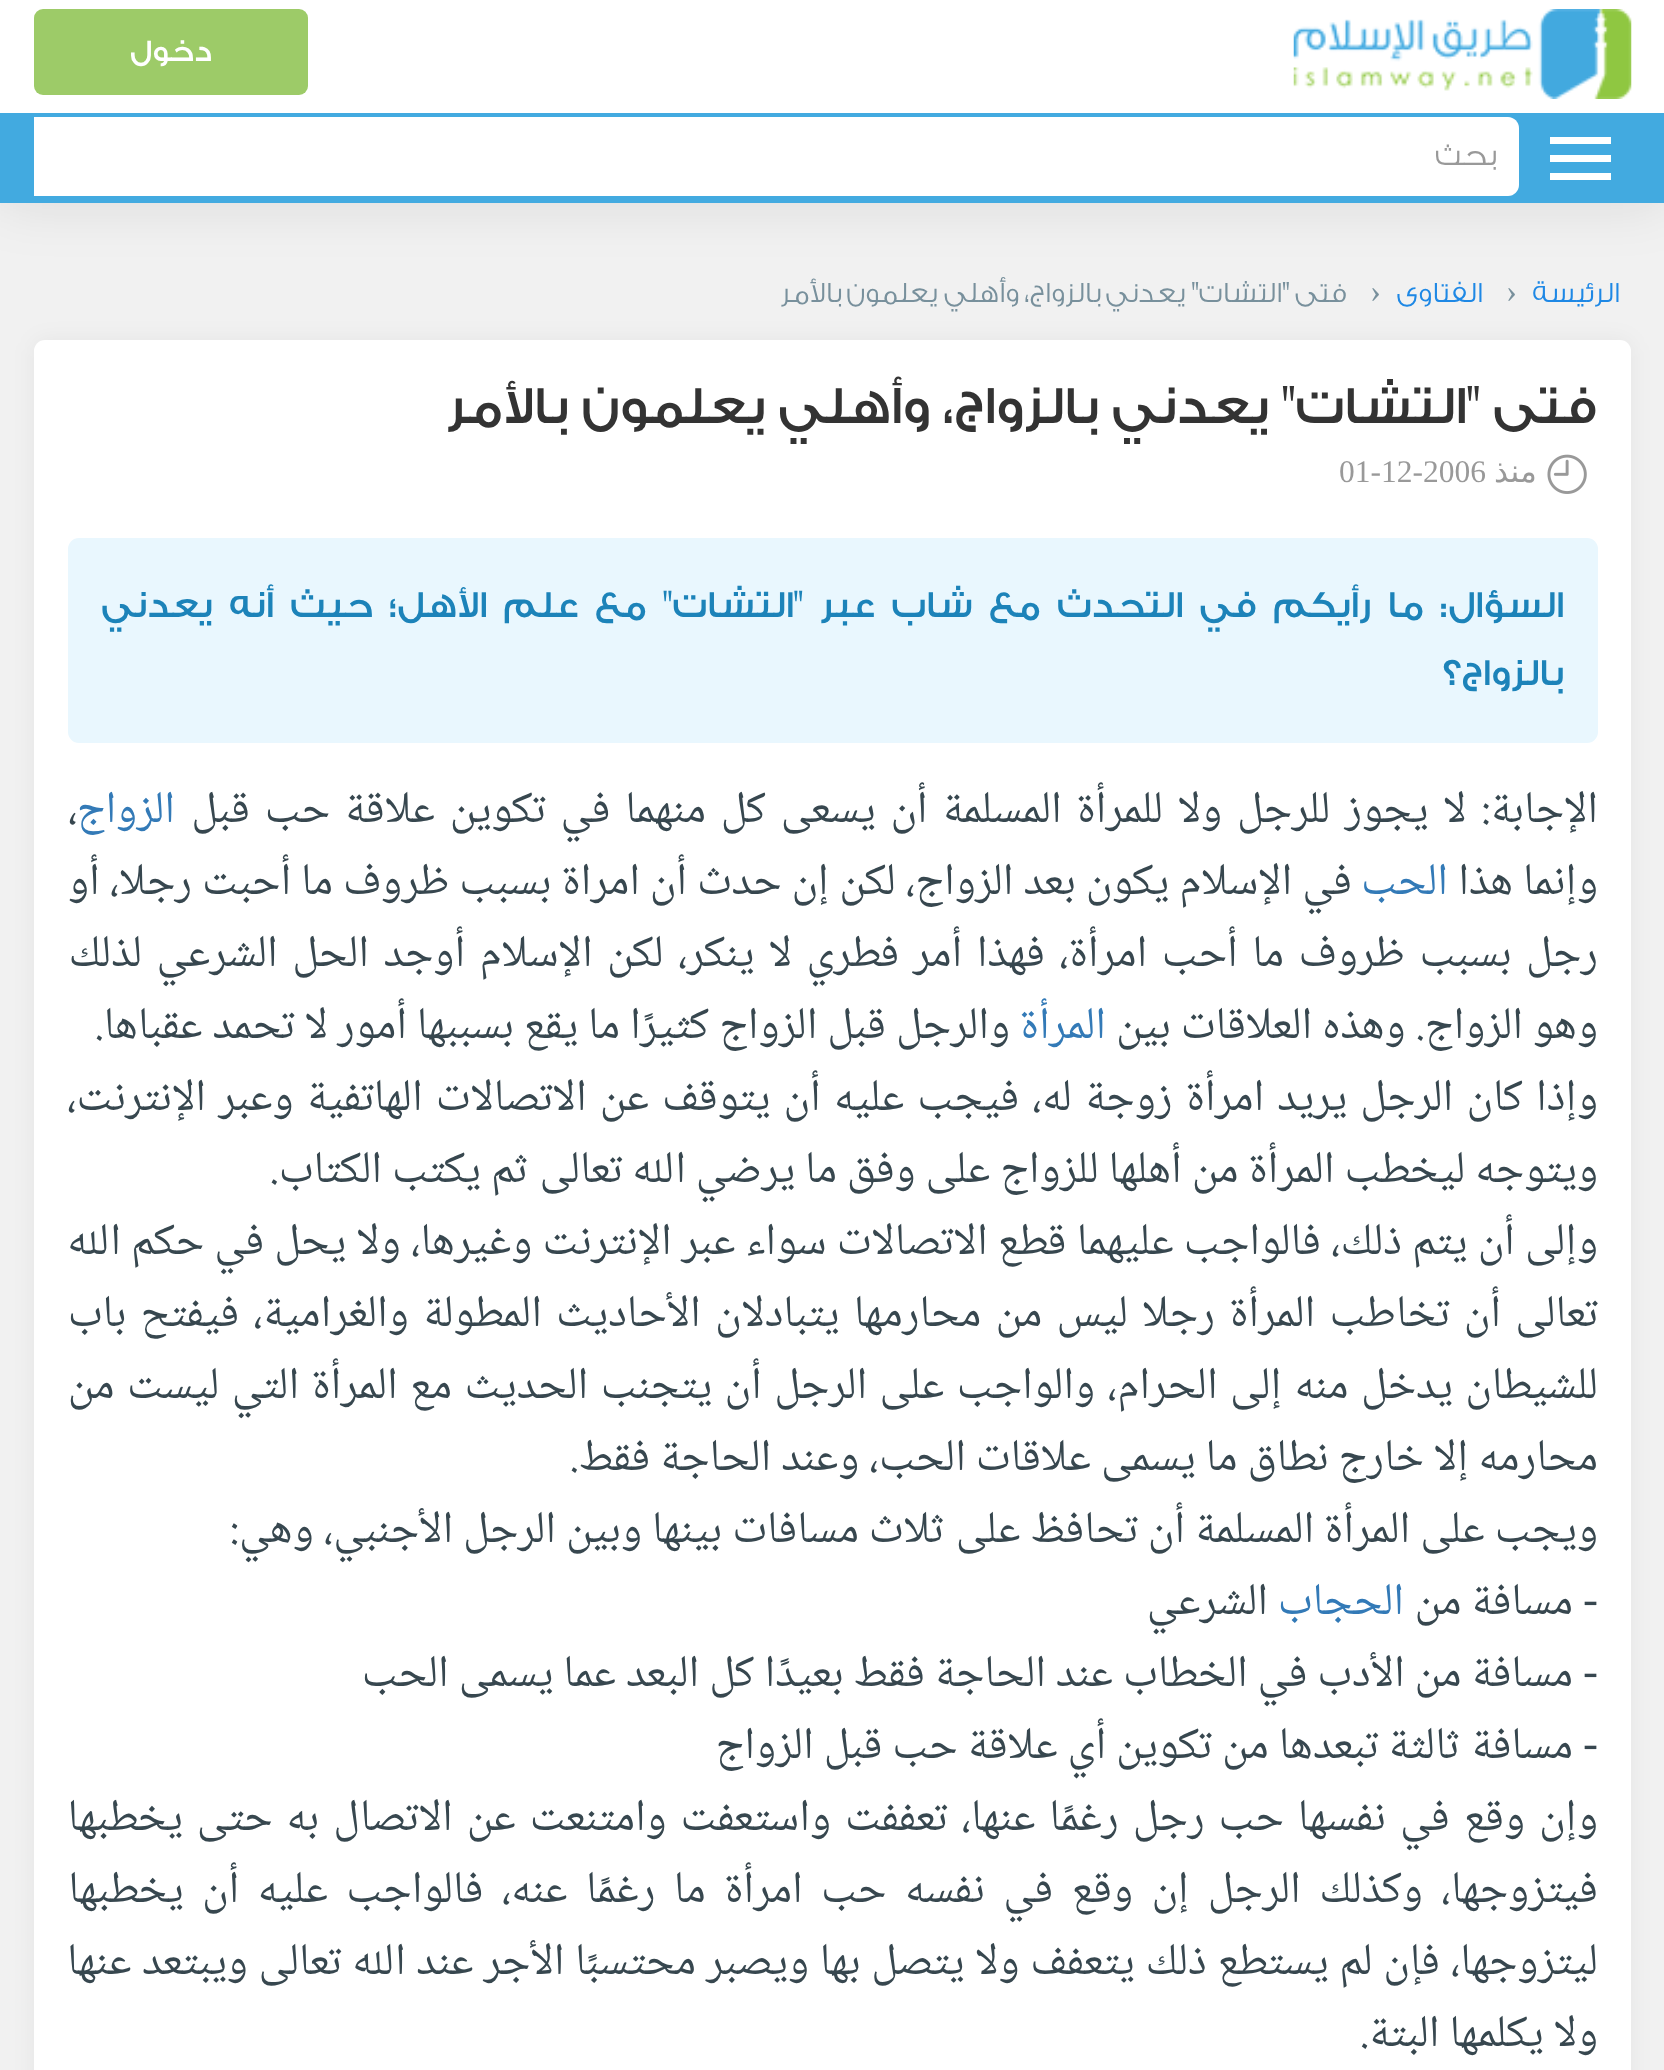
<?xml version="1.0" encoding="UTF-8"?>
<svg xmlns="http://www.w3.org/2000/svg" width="1664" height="2070">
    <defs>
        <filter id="blur1" x="-50%" y="-200%" width="200%" height="500%"><feGaussianBlur stdDeviation="28"/></filter>
        <clipPath id="clip1"><rect x="56" y="137" width="1440" height="41"/></clipPath>
        <filter id="blur2" x="-50%" y="-200%" width="200%" height="500%"><feGaussianBlur stdDeviation="11"/></filter>
    </defs>
    <rect width="100%" height="100%" fill="#F1F1F1"/>
    <rect x="0" y="0" width="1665" height="203" fill="#000000" fill-opacity="0.1" filter="url(#blur1)"/>
    <rect x="0" y="113" width="1664" height="90" fill="#42AAE0"/>
    <rect x="0" y="0" width="1664" height="113" fill="#FFFFFF"/>
    <rect x="34" y="9" width="274" height="86" rx="9" fill="#9DCB68"/>
    <text x="212" y="61" font-family="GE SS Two" font-size="31.5" font-weight="500" direction="rtl" fill="#FFFFFF">دخول</text>
    <image x="1293" y="9" width="339" height="90" href="img_01.png"/>
    <rect x="1550" y="137" width="61" height="7" fill="#FFFFFF"/>
    <rect x="1550" y="155" width="61" height="7" fill="#FFFFFF"/>
    <rect x="1550" y="173" width="61" height="7" fill="#FFFFFF"/>
    <path d="M 34 117 H 1508 C 1514 117 1519 122 1519 128 V 185 C 1519 191 1514 196 1508 196 H 34 Z" fill="#FFFFFF"/>
    <g clip-path="url(#clip1)">
        <text x="1496" y="165" font-family="GE SS Two" font-size="31.5" font-weight="300" direction="rtl" fill="#999999">بحث</text>
    </g>
    <text x="1620" y="302" font-family="GE SS Two" font-size="29.25" font-weight="300" direction="rtl" fill="#1E88E5">الرئيسة</text>
    <text x="1506" y="302" font-family="Liberation Serif" font-size="33" fill="#78909C">›</text>
    <text x="1483" y="302" font-family="GE SS Two" font-size="29.25" font-weight="300" direction="rtl" fill="#1E88E5">الفتاوى</text>
    <text x="1370" y="302" font-family="Liberation Serif" font-size="33" fill="#78909C">›</text>
    <text x="1347" y="302" font-family="GE SS Two" font-size="29.25" font-weight="300" direction="rtl" fill="#78909C">فتى "التشات" يعدني بالزواج، وأهلي يعلمون بالأمر</text>
    <rect x="34" y="340" width="1597" height="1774" rx="11" fill="#000000" fill-opacity="0.05" filter="url(#blur2)"/>
    <rect x="34" y="340" width="1597" height="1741" rx="11" fill="#FFFFFF"/>
    <text x="1597" y="423" font-family="GE SS Two" font-size="54" font-weight="500" direction="rtl" fill="#333333">فتى "التشات" يعدني بالزواج، وأهلي يعلمون بالأمر</text>
    <image x="1547" y="454" width="40" height="40" href="img_02.png"/>
    <text x="1537" y="482" font-family="DejaVu Sans" font-size="31.5" direction="rtl" fill="#999999">منذ</text>
    <text x="1339" y="482" font-family="Liberation Serif" font-size="31.5" fill="#999999">01-12-2006</text>
    <rect x="68" y="538" width="1530" height="205" rx="11" fill="#E9F7FE"/>
    <text font-family="GE SS Two" font-size="38.25" font-weight="500" direction="rtl" fill="#1C83B9">
        <tspan x="1564" y="617" word-spacing="7.25">السؤال: ما رأيكم في التحدث مع شاب عبر "التشات" مع علم الأهل؛ حيث أنه يعدني</tspan>
        <tspan x="1564" y="685">بالزواج؟</tspan>
    </text>
    <text x="1598" y="822" word-spacing="4.9" font-family="Noto Naskh Arabic" font-size="45" direction="rtl" fill="#37474F">الإجابة: لا يجوز للرجل ولا للمرأة المسلمة أن يسعى كل منهما في تكوين علاقة حب قبل</text>
    <text x="175" y="822" font-family="Noto Naskh Arabic" font-size="45" direction="rtl" fill="#337AB7">الزواج</text>
    <text x="68" y="822" font-family="Noto Naskh Arabic" font-size="45" fill="#37474F">،</text>
    <text x="1598" y="894" font-family="Noto Naskh Arabic" font-size="45" direction="rtl" fill="#37474F">وإنما هذا</text>
    <text x="1448" y="894" font-family="Noto Naskh Arabic" font-size="45" direction="rtl" fill="#337AB7">الحب</text>
    <text x="1352" y="894" font-family="Noto Naskh Arabic" font-size="45" direction="rtl" fill="#37474F">في الإسلام يكون بعد الزواج، لكن إن حدث أن امراة بسبب ظروف ما أحبت رجلا، أو</text>
    <text font-family="Noto Naskh Arabic" font-size="45" direction="rtl" fill="#37474F">
        <tspan x="1598" y="966" word-spacing="4.5">رجل بسبب ظروف ما أحب امرأة، فهذا أمر فطري لا ينكر، لكن الإسلام أوجد الحل الشرعي لذلك</tspan>
        <tspan x="1598" y="1038">وهو الزواج. وهذه العلاقات بين</tspan>
    </text>
    <text x="1106" y="1038" font-family="Noto Naskh Arabic" font-size="45" direction="rtl" fill="#337AB7">المرأة</text>
    <text x="1010" y="1038" font-family="Noto Naskh Arabic" font-size="45" direction="rtl" fill="#37474F">والرجل قبل الزواج كثيرًا ما يقع بسببها أمور لا تحمد عقباها.</text>
    <text font-family="Noto Naskh Arabic" font-size="45" direction="rtl" fill="#37474F">
        <tspan x="1598" y="1110" word-spacing="3.25">وإذا كان الرجل يريد امرأة زوجة له، فيجب عليه أن يتوقف عن الاتصالات الهاتفية وعبر الإنترنت،</tspan>
        <tspan x="1598" y="1182">ويتوجه ليخطب المرأة من أهلها للزواج على وفق ما يرضي الله تعالى ثم يكتب الكتاب.</tspan>
        <tspan x="1598" y="1254" word-spacing="0.25">وإلى أن يتم ذلك، فالواجب عليهما قطع الاتصالات سواء عبر الإنترنت وغيرها، ولا يحل في حكم الله</tspan>
        <tspan x="1598" y="1326" word-spacing="4.25">تعالى أن تخاطب المرأة رجلا ليس من محارمها يتبادلان الأحاديث المطولة والغرامية، فيفتح باب</tspan>
        <tspan x="1598" y="1398" word-spacing="2.5">للشيطان يدخل منه إلى الحرام، والواجب على الرجل أن يتجنب الحديث مع المرأة التي ليست من</tspan>
        <tspan x="1598" y="1470">محارمه إلا خارج نطاق ما يسمى علاقات الحب، وعند الحاجة فقط.</tspan>
        <tspan x="1598" y="1542">ويجب على المرأة المسلمة أن تحافظ على ثلاث مسافات بينها وبين الرجل الأجنبي، وهي:</tspan>
    </text>
    <text x="1598" y="1614" font-family="Liberation Serif" font-size="45" direction="rtl" fill="#37474F">-</text>
    <text x="1573" y="1614" font-family="Noto Naskh Arabic" font-size="45" direction="rtl" fill="#37474F">مسافة من</text>
    <text x="1404" y="1614" font-family="Noto Naskh Arabic" font-size="45" direction="rtl" fill="#337AB7">الحجاب</text>
    <text x="1268" y="1614" font-family="Noto Naskh Arabic" font-size="45" direction="rtl" fill="#37474F">الشرعي</text>
    <text x="1598" y="1686" font-family="Liberation Serif" font-size="45" direction="rtl" fill="#37474F">-</text>
    <text x="1573" y="1686" font-family="Noto Naskh Arabic" font-size="45" direction="rtl" fill="#37474F">مسافة من الأدب في الخطاب عند الحاجة فقط بعيدًا كل البعد عما يسمى الحب</text>
    <text x="1598" y="1758" font-family="Liberation Serif" font-size="45" direction="rtl" fill="#37474F">-</text>
    <text x="1573" y="1758" font-family="Noto Naskh Arabic" font-size="45" direction="rtl" fill="#37474F">مسافة ثالثة تبعدها من تكوين أي علاقة حب قبل الزواج</text>
    <text font-family="Noto Naskh Arabic" font-size="45" direction="rtl" fill="#37474F">
        <tspan x="1598" y="1830" word-spacing="4">وإن وقع في نفسها حب رجل رغمًا عنها، تعففت واستعفت وامتنعت عن الاتصال به حتى يخطبها</tspan>
        <tspan x="1598" y="1902" word-spacing="8.5">فيتزوجها، وكذلك الرجل إن وقع في نفسه حب امرأة ما رغمًا عنه، فالواجب عليه أن يخطبها</tspan>
        <tspan x="1598" y="1974" word-spacing="0.75">ليتزوجها، فإن لم يستطع ذلك يتعفف ولا يتصل بها ويصبر محتسبًا الأجر عند الله تعالى ويبتعد عنها</tspan>
        <tspan x="1598" y="2046">ولا يكلمها البتة.</tspan>
    </text>
</svg>
